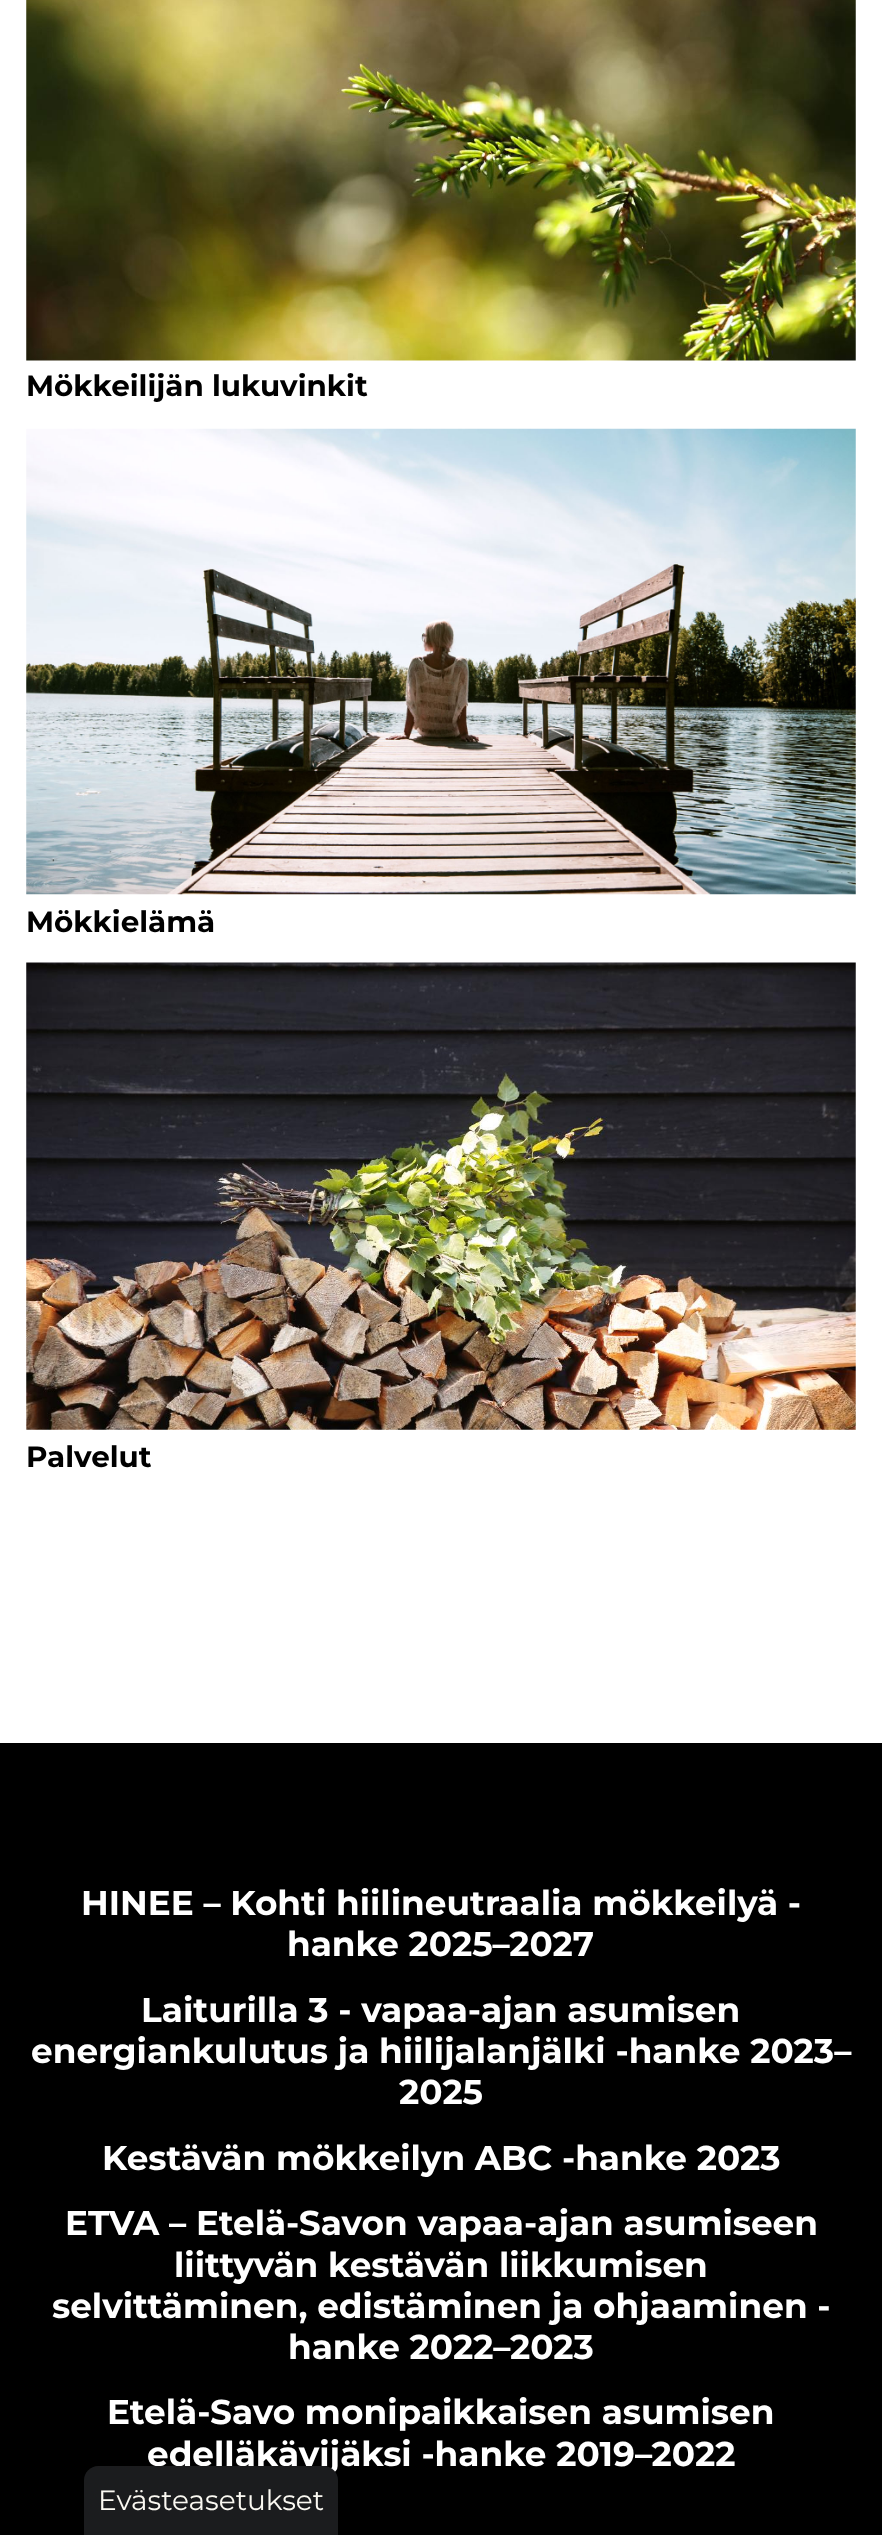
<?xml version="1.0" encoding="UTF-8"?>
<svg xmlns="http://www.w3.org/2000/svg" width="882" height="2535">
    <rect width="100%" height="100%" fill="#FFFFFF"/>
    <image x="26" y="0" width="830" height="361" href="img_01.png"/>
    <text x="26" y="396" font-family="Montserrat" font-size="29.4" font-weight="700" fill="#000000">Mökkeilijän lukuvinkit</text>
    <image x="26" y="428" width="830" height="467" href="img_02.png"/>
    <text x="26" y="932" font-family="Montserrat" font-size="29.4" font-weight="700" fill="#000000">Mökkielämä</text>
    <image x="26" y="962" width="830" height="468" href="img_03.png"/>
    <text x="26" y="1467" font-family="Montserrat" font-size="29.4" font-weight="700" fill="#000000">Palvelut</text>
    <rect x="0" y="1743" width="882" height="792" fill="#000000"/>
    <text x="81" y="1915" font-family="Montserrat" font-size="34.3" font-weight="700" fill="#FFFFFF">HINEE – Kohti hiilineutraalia mökkeilyä -</text>
    <text x="287" y="1956" font-family="Montserrat" font-size="34.3" font-weight="700" fill="#FFFFFF">hanke 2025–2027</text>
    <text x="141" y="2022" font-family="Montserrat" font-size="34.3" font-weight="700" fill="#FFFFFF">Laiturilla 3 - vapaa-ajan asumisen</text>
    <text x="31" y="2063" font-family="Montserrat" font-size="34.3" font-weight="700" fill="#FFFFFF">energiankulutus ja hiilijalanjälki -hanke 2023–</text>
    <text x="399" y="2104" font-family="Montserrat" font-size="34.3" font-weight="700" fill="#FFFFFF">2025</text>
    <text x="102" y="2170" font-family="Montserrat" font-size="34.3" font-weight="700" fill="#FFFFFF">Kestävän mökkeilyn ABC -hanke 2023</text>
    <text x="65" y="2235" font-family="Montserrat" font-size="34.3" font-weight="700" fill="#FFFFFF">ETVA – Etelä-Savon vapaa-ajan asumiseen</text>
    <text x="174" y="2277" font-family="Montserrat" font-size="34.3" font-weight="700" fill="#FFFFFF">liittyvän kestävän liikkumisen</text>
    <text x="52" y="2318" font-family="Montserrat" font-size="34.3" font-weight="700" fill="#FFFFFF">selvittäminen, edistäminen ja ohjaaminen -</text>
    <text x="288" y="2359" font-family="Montserrat" font-size="34.3" font-weight="700" fill="#FFFFFF">hanke 2022–2023</text>
    <text x="107" y="2424" font-family="Montserrat" font-size="34.3" font-weight="700" fill="#FFFFFF">Etelä-Savo monipaikkaisen asumisen</text>
    <text x="147" y="2466" font-family="Montserrat" font-size="34.3" font-weight="700" fill="#FFFFFF">edelläkävijäksi -hanke 2019–2022</text>
    <path d="M 98 2466 H 324 C 331.5 2466 338 2472.5 338 2480 V 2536 H 84 V 2480 C 84 2472.5 90.5 2466 98 2466 Z" fill="#1B1C1E"/>
    <text x="98" y="2510" font-family="Montserrat" font-size="28" fill="#FBF9F2">Evästeasetukset</text>
</svg>
